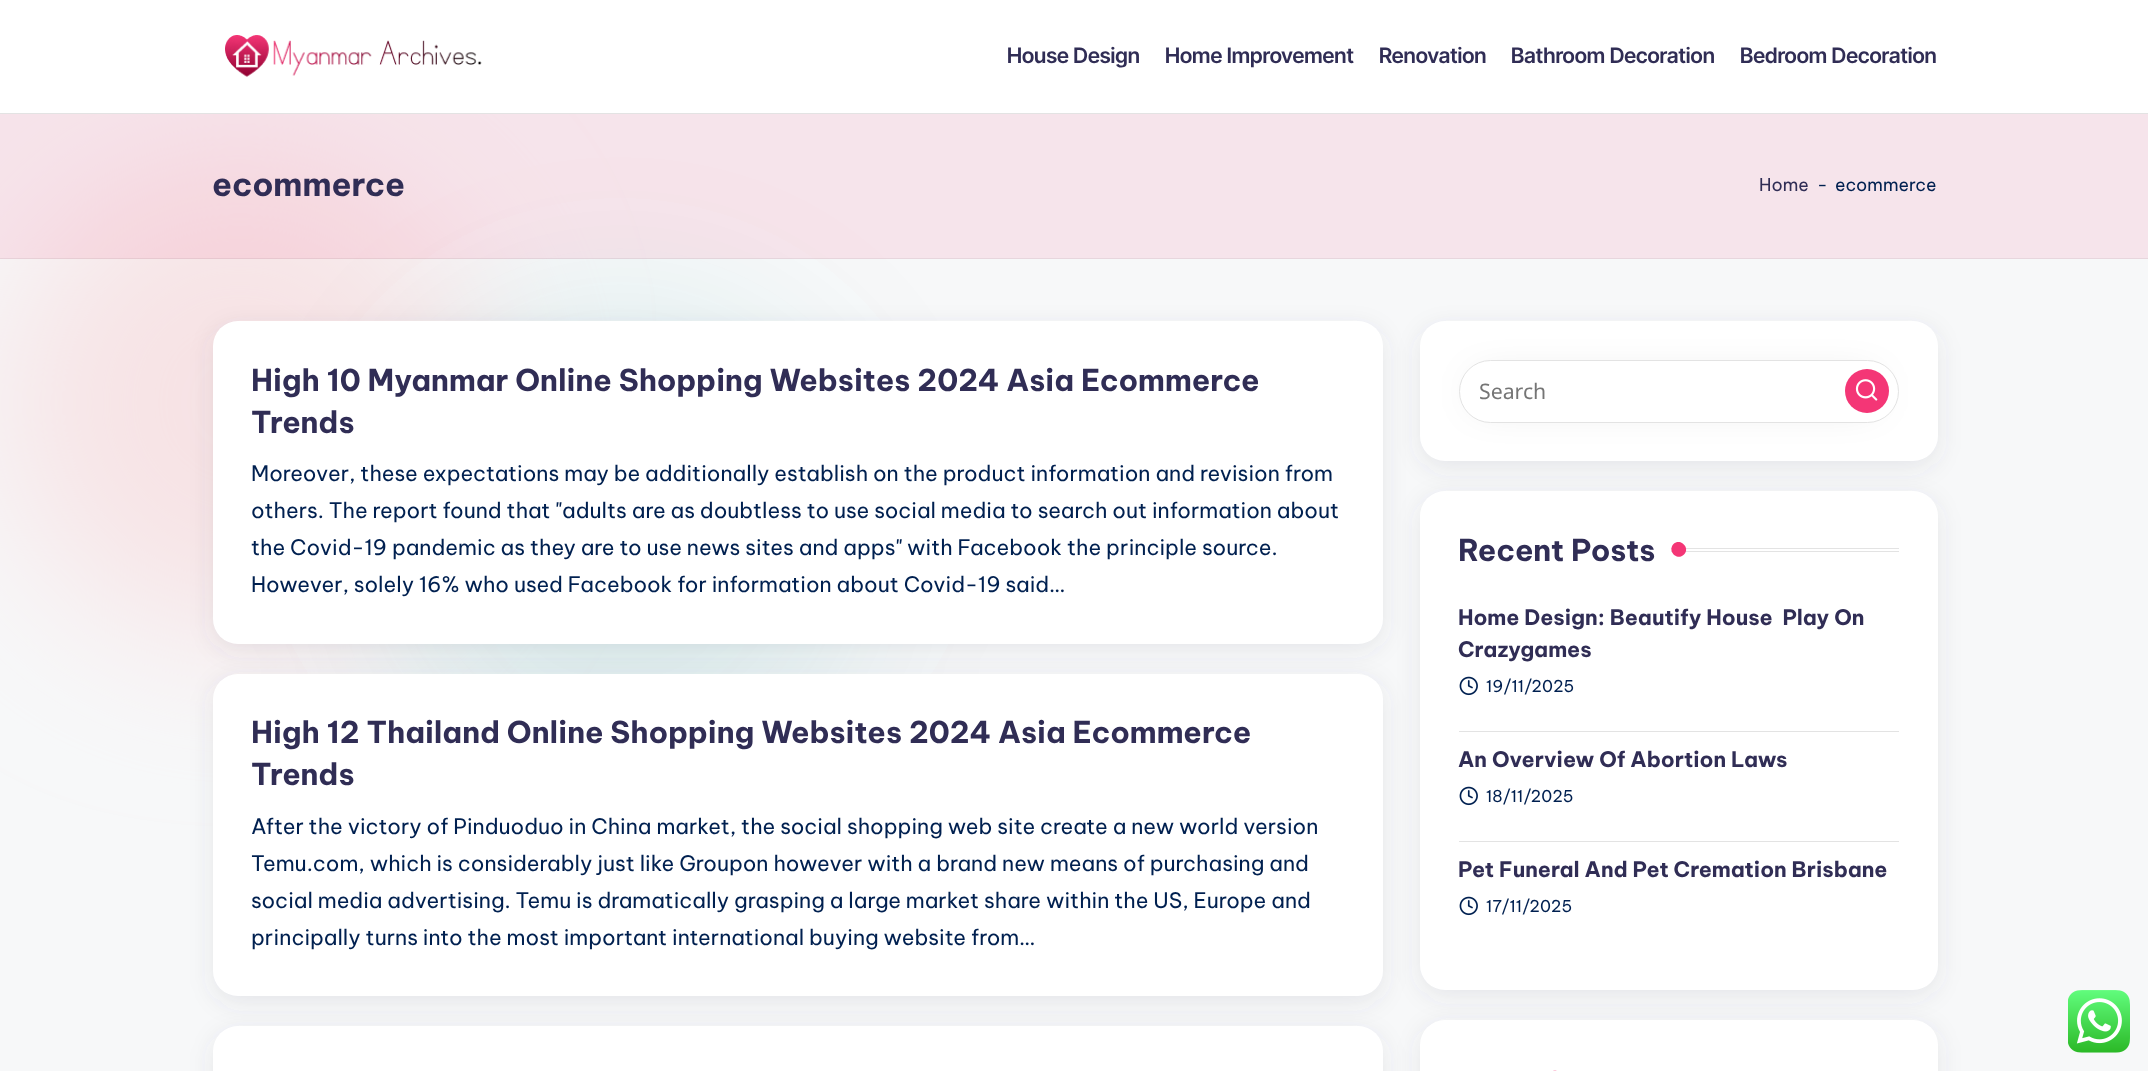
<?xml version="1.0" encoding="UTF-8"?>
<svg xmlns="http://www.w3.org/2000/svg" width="2148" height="1071">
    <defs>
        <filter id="blur1" x="-50%" y="-200%" width="200%" height="500%"><feGaussianBlur stdDeviation="80"/></filter>
        <filter id="blur2" x="-50%" y="-200%" width="200%" height="500%"><feGaussianBlur stdDeviation="12.5"/></filter>
        <filter id="blur3" x="-50%" y="-200%" width="200%" height="500%"><feGaussianBlur stdDeviation="20"/></filter>
    </defs>
    <rect width="100%" height="100%" fill="#F7F8F9"/>
    <rect x="0" y="163" width="480" height="480" rx="240" fill="#F7E3E5" filter="url(#blur1)"/>
    <rect x="380" y="300" width="480" height="480" rx="240" fill="#04868B" fill-opacity="0.1" filter="url(#blur1)"/>
    <rect x="0" y="0" width="2148" height="113" fill="#FFFFFF"/>
    <rect x="0" y="113" width="2148" height="1" fill="#E3E3E3"/>
    <image x="225" y="35" width="257" height="42" href="img_01.png"/>
    <text x="1007" y="63" font-family="Inter Tight" font-size="21.25" font-weight="600" fill="#302D55">House Design</text>
    <text x="1165" y="63" font-family="Inter Tight" font-size="21.25" font-weight="600" fill="#302D55">Home Improvement</text>
    <text x="1379" y="63" font-family="Inter Tight" font-size="21.25" font-weight="600" fill="#302D55">Renovation</text>
    <text x="1511" y="63" font-family="Inter Tight" font-size="21.25" font-weight="600" fill="#302D55">Bathroom Decoration</text>
    <text x="1740" y="63" font-family="Inter Tight" font-size="21.25" font-weight="600" fill="#302D55">Bedroom Decoration</text>
    <rect x="0" y="114" width="2148" height="145" fill="#F43676" fill-opacity="0.1"/>
    <rect x="0" y="258" width="2148" height="1" fill="#000000" fill-opacity="0.06"/>
    <text x="212" y="196" font-family="Be Vietnam Pro" font-size="32.5" font-weight="700" fill="#302D55">ecommerce</text>
    <text x="1759" y="191" font-family="Be Vietnam Pro" font-size="17.5" fill="#302D55">Home</text>
    <text x="1817" y="191" font-family="Be Vietnam Pro" font-size="17.5" fill="#002050">-</text>
    <text x="1835" y="191" font-family="Be Vietnam Pro" font-size="17.5" fill="#002050">ecommerce</text>
    <rect x="213" y="328" width="1170" height="322" rx="25" fill="#454360" fill-opacity="0.1" filter="url(#blur2)"/>
    <rect x="213" y="321" width="1170" height="323" rx="25" fill="#FFFFFF"/>
    <text font-family="Be Vietnam Pro" font-size="30" font-weight="700" fill="#302D55">
        <tspan x="251" y="391">High 10 Myanmar Online Shopping Websites 2024 Asia Ecommerce</tspan>
        <tspan x="251" y="433">Trends</tspan>
    </text>
    <text font-family="Be Vietnam Pro" font-size="21.25" fill="#002050">
        <tspan x="251" y="481">Moreover, these expectations may be additionally establish on the product information and revision from</tspan>
        <tspan x="251" y="518">others. The report found that "adults are as doubtless to use social media to search out information about</tspan>
        <tspan x="251" y="555">the Covid-19 pandemic as they are to use news sites and apps" with Facebook the principle source.</tspan>
        <tspan x="251" y="592">However, solely 16% who used Facebook for information about Covid-19 said…</tspan>
    </text>
    <rect x="213" y="680" width="1170" height="323" rx="25" fill="#454360" fill-opacity="0.1" filter="url(#blur2)"/>
    <rect x="213" y="674" width="1170" height="322" rx="25" fill="#FFFFFF"/>
    <text font-family="Be Vietnam Pro" font-size="30" font-weight="700" fill="#302D55">
        <tspan x="251" y="743">High 12 Thailand Online Shopping Websites 2024 Asia Ecommerce</tspan>
        <tspan x="251" y="785">Trends</tspan>
    </text>
    <text font-family="Be Vietnam Pro" font-size="21.25" fill="#002050">
        <tspan x="251" y="834">After the victory of Pinduoduo in China market, the social shopping web site create a new world version</tspan>
        <tspan x="251" y="871">Temu.com, which is considerably just like Groupon however with a brand new means of purchasing and</tspan>
        <tspan x="251" y="908">social media advertising. Temu is dramatically grasping a large market share within the US, Europe and</tspan>
        <tspan x="251" y="945">principally turns into the most important international buying website from…</tspan>
    </text>
    <rect x="213" y="1033" width="1170" height="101" rx="25" fill="#454360" fill-opacity="0.1" filter="url(#blur2)"/>
    <rect x="213" y="1026" width="1170" height="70" rx="25" fill="#FFFFFF"/>
    <rect x="1420" y="328" width="518" height="140" rx="25" fill="#454360" fill-opacity="0.1" filter="url(#blur2)"/>
    <rect x="1420" y="321" width="518" height="140" rx="25" fill="#FFFFFF"/>
    <rect x="1475" y="380" width="400" height="23" rx="11.5" fill="#000000" fill-opacity="0.15" filter="url(#blur3)"/>
    <rect x="1459.5" y="360.5" width="439" height="62" rx="31" fill="#FFFFFF" stroke="#E3E3E3"/>
    <text x="1479" y="399" font-family="Noto Sans" font-size="21.25" fill="#757575">Search</text>
    <circle cx="1867" cy="391" r="22" fill="#F43676"/>
    <image x="1855" y="379" width="23" height="22" href="img_02.png"/>
    <rect x="1420" y="498" width="518" height="498" rx="25" fill="#454360" fill-opacity="0.1" filter="url(#blur2)"/>
    <rect x="1420" y="491" width="518" height="499" rx="25" fill="#FFFFFF"/>
    <text x="1458" y="561" font-family="Be Vietnam Pro" font-size="30" font-weight="700" fill="#302D55">Recent Posts</text>
    <rect x="1671" y="548" width="228" height="1" fill="#E3E3E3"/>
    <rect x="1671" y="551" width="228" height="1" fill="#E3E3E3"/>
    <path d="M 1673.5 544 C 1680.5 537.5 1690.5 548 1684 554.5 C 1677 561.5 1667 551 1673.5 544 Z" fill="#F43676"/>
    <text font-family="Be Vietnam Pro" font-size="21.25" font-weight="700" fill="#302D55">
        <tspan x="1458" y="625">Home Design: Beautify House ️ Play On</tspan>
        <tspan x="1458" y="657">Crazygames</tspan>
    </text>
    <image x="1459" y="676" width="19" height="20" href="img_03.png"/>
    <text x="1486" y="692" font-family="Be Vietnam Pro" font-size="16.25" fill="#002050">19/11/2025</text>
    <rect x="1459" y="731" width="440" height="1" fill="#E3E3E3"/>
    <text x="1458" y="767" font-family="Be Vietnam Pro" font-size="21.25" font-weight="700" fill="#302D55">An Overview Of Abortion Laws</text>
    <image x="1459" y="786" width="19" height="20" href="img_03.png"/>
    <text x="1486" y="802" font-family="Be Vietnam Pro" font-size="16.25" fill="#002050">18/11/2025</text>
    <rect x="1459" y="841" width="440" height="1" fill="#E3E3E3"/>
    <text x="1458" y="877" font-family="Be Vietnam Pro" font-size="21.25" font-weight="700" fill="#302D55">Pet Funeral And Pet Cremation Brisbane</text>
    <image x="1459" y="896" width="19" height="20" href="img_03.png"/>
    <text x="1486" y="912" font-family="Be Vietnam Pro" font-size="16.25" fill="#002050">17/11/2025</text>
    <rect x="1420" y="1026" width="518" height="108" rx="25" fill="#454360" fill-opacity="0.1" filter="url(#blur2)"/>
    <rect x="1420" y="1020" width="518" height="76" rx="25" fill="#FFFFFF"/>
    <path d="M 1550 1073 C 1556.5 1066 1567 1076.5 1560 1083.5 C 1553.5 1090 1543 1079.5 1550 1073 Z" fill="#F43676"/>
    <image x="2068" y="990" width="62" height="63" href="img_04.png"/>
</svg>
